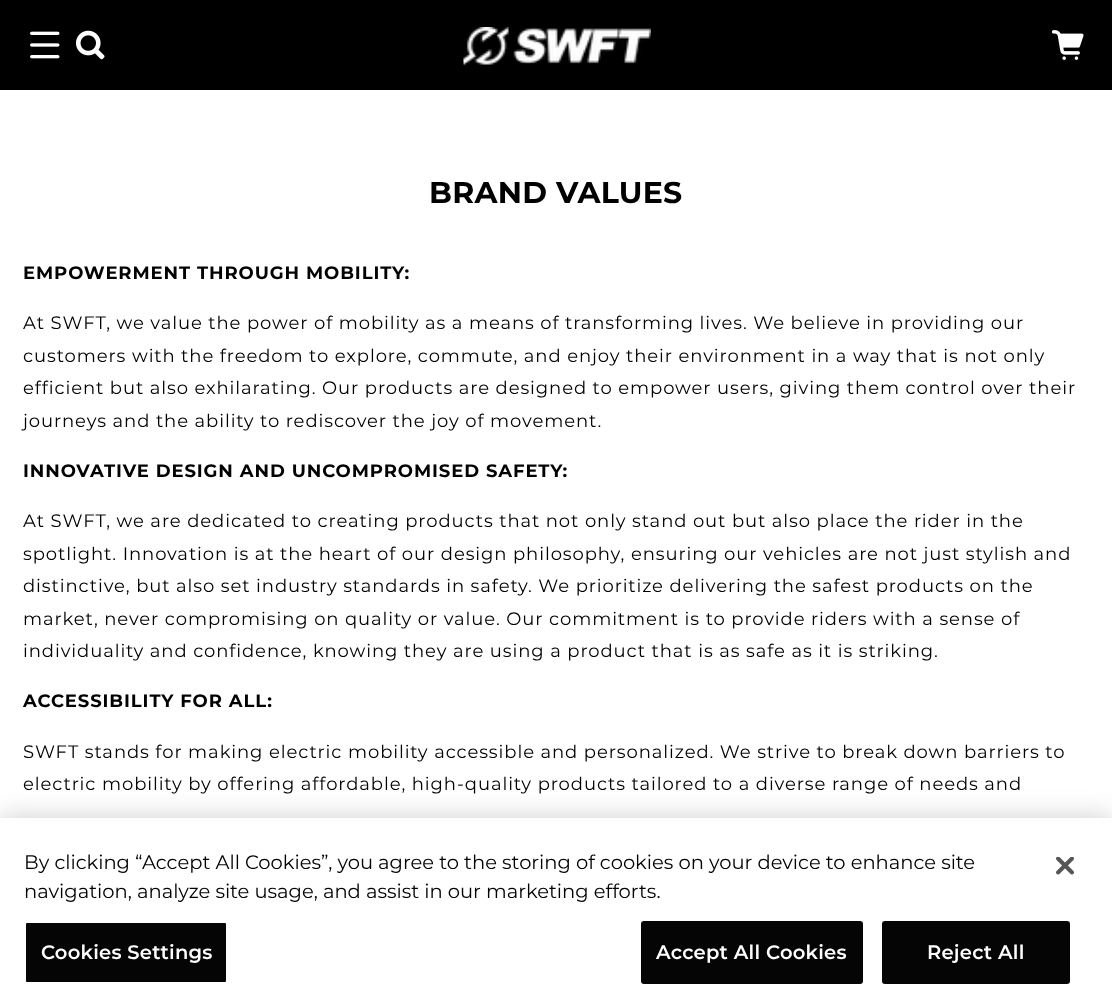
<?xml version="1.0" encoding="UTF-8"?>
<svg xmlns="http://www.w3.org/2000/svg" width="1112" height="1004">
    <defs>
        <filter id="blur1" x="-50%" y="-200%" width="200%" height="500%"><feGaussianBlur stdDeviation="13.5"/></filter>
    </defs>
    <rect width="100%" height="100%" fill="#FFFFFF"/>
    <rect x="0" y="0" width="1112" height="90" fill="#000000"/>
    <image x="30" y="31" width="30" height="28" href="img_01.png"/>
    <image x="75" y="30" width="30" height="30" href="img_02.png"/>
    <image x="463" y="27" width="188" height="38" href="img_03.png"/>
    <image x="1052" y="30" width="32" height="30" href="img_04.png"/>
    <text x="429" y="203" font-family="Montserrat" font-size="30" font-weight="700" letter-spacing="0.25" fill="#000000">BRAND VALUES</text>
    <text x="23" y="279" font-family="Montserrat" font-size="18" font-weight="700" letter-spacing="0.9" fill="#000000">EMPOWERMENT THROUGH MOBILITY:</text>
    <text font-family="Montserrat" font-size="18" letter-spacing="0.9" fill="#000000">
        <tspan x="23" y="329">At SWFT, we value the power of mobility as a means of transforming lives. We believe in providing our</tspan>
        <tspan x="23" y="362">customers with the freedom to explore, commute, and enjoy their environment in a way that is not only</tspan>
        <tspan x="23" y="394">efficient but also exhilarating. Our products are designed to empower users, giving them control over their</tspan>
        <tspan x="23" y="427">journeys and the ability to rediscover the joy of movement.</tspan>
    </text>
    <text x="23" y="477" font-family="Montserrat" font-size="18" font-weight="700" letter-spacing="0.9" fill="#000000">INNOVATIVE DESIGN AND UNCOMPROMISED SAFETY:</text>
    <text font-family="Montserrat" font-size="18" letter-spacing="0.9" fill="#000000">
        <tspan x="23" y="527">At SWFT, we are dedicated to creating products that not only stand out but also place the rider in the</tspan>
        <tspan x="23" y="560">spotlight. Innovation is at the heart of our design philosophy, ensuring our vehicles are not just stylish and</tspan>
        <tspan x="23" y="592">distinctive, but also set industry standards in safety. We prioritize delivering the safest products on the</tspan>
        <tspan x="23" y="625">market, never compromising on quality or value. Our commitment is to provide riders with a sense of</tspan>
        <tspan x="23" y="657">individuality and confidence, knowing they are using a product that is as safe as it is striking.</tspan>
    </text>
    <text x="23" y="707" font-family="Montserrat" font-size="18" font-weight="700" letter-spacing="0.9" fill="#000000">ACCESSIBILITY FOR ALL:</text>
    <text font-family="Montserrat" font-size="18" letter-spacing="0.9" fill="#000000">
        <tspan x="23" y="758">SWFT stands for making electric mobility accessible and personalized. We strive to break down barriers to</tspan>
        <tspan x="23" y="790">electric mobility by offering affordable, high-quality products tailored to a diverse range of needs and</tspan>
    </text>
    <rect x="0" y="818" width="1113" height="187" fill="#000000" fill-opacity="0.2" filter="url(#blur1)"/>
    <rect x="0" y="818" width="1112" height="186" fill="#FFFFFF"/>
    <text font-family="Montserrat" font-size="19.5" fill="#000000">
        <tspan x="24" y="869">By clicking “Accept All Cookies”, you agree to the storing of cookies on your device to enhance site</tspan>
        <tspan x="24" y="898">navigation, analyze site usage, and assist in our marketing efforts.</tspan>
    </text>
    <rect x="25" y="922" width="202" height="61" rx="2" fill="#050505" stroke="#FFFFFF" stroke-width="2"/>
    <text x="41" y="959" font-family="Montserrat" font-size="19.5" font-weight="600" letter-spacing="0.25" fill="#FFFFFF">Cookies Settings</text>
    <rect x="642" y="922" width="220" height="61" rx="2" fill="#050505" stroke="#050505" stroke-width="2"/>
    <text x="656" y="959" font-family="Montserrat" font-size="19.5" font-weight="600" letter-spacing="0.25" fill="#FFFFFF">Accept All Cookies</text>
    <rect x="883" y="922" width="186" height="61" rx="2" fill="#050505" stroke="#050505" stroke-width="2"/>
    <text x="927" y="959" font-family="Montserrat" font-size="19.5" font-weight="600" letter-spacing="0.25" fill="#FFFFFF">Reject All</text>
    <image x="1056" y="857" width="18" height="18" href="img_05.png"/>
</svg>
